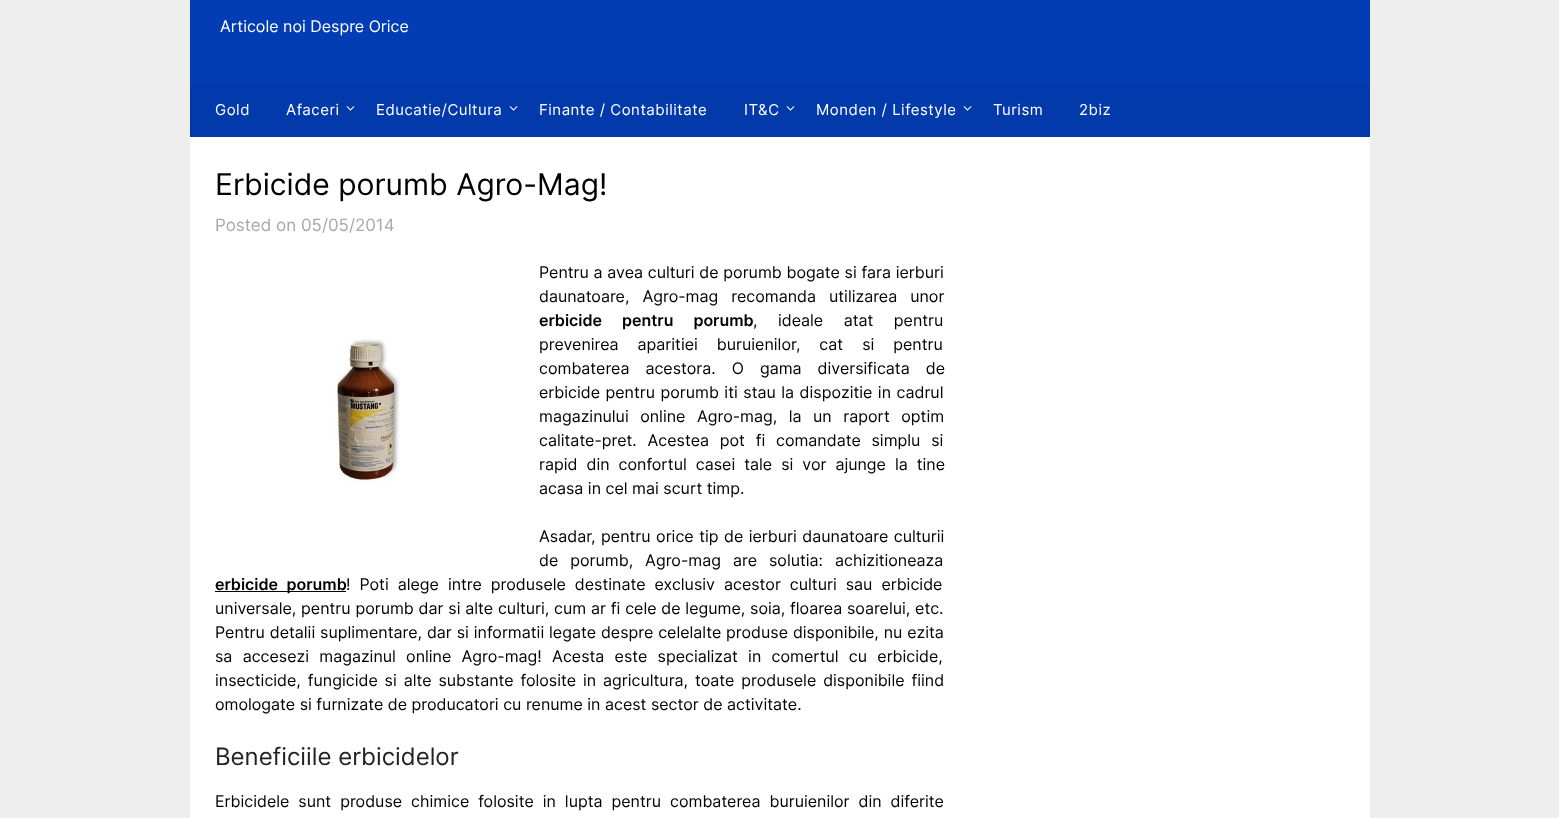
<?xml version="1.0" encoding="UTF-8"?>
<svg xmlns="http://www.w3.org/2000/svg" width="1559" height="818">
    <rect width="100%" height="100%" fill="#EEEEEE"/>
    <rect x="190" y="0" width="1180" height="83" fill="#023DB6"/>
    <text x="220" y="32" font-family="Inter" font-size="16" fill="#FFFFFF">Articole noi Despre Orice</text>
    <rect x="190" y="83" width="1180" height="54" fill="#0239AB"/>
    <text x="215" y="115" font-family="Inter" font-size="15" letter-spacing="0.5" fill="#FFFFFF">Gold</text>
    <text x="286" y="115" font-family="Inter" font-size="15" letter-spacing="0.5" fill="#FFFFFF">Afaceri</text>
    <image x="346" y="106" width="9" height="5" href="img_01.png"/>
    <text x="376" y="115" font-family="Inter" font-size="15" letter-spacing="0.5" fill="#FFFFFF">Educatie/Cultura</text>
    <image x="509" y="106" width="9" height="5" href="img_01.png"/>
    <text x="539" y="115" font-family="Inter" font-size="15" letter-spacing="0.5" fill="#FFFFFF">Finante / Contabilitate</text>
    <text x="744" y="115" font-family="Inter" font-size="15" letter-spacing="0.5" fill="#FFFFFF">IT&amp;C</text>
    <image x="786" y="106" width="9" height="5" href="img_01.png"/>
    <text x="816" y="115" font-family="Inter" font-size="15" letter-spacing="0.5" fill="#FFFFFF">Monden / Lifestyle</text>
    <image x="963" y="106" width="9" height="5" href="img_01.png"/>
    <text x="993" y="115" font-family="Inter" font-size="15" letter-spacing="0.5" fill="#FFFFFF">Turism</text>
    <text x="1079" y="115" font-family="Inter" font-size="15" letter-spacing="0.5" fill="#FFFFFF">2biz</text>
    <rect x="190" y="137" width="1180" height="681" fill="#FFFFFF"/>
    <text x="215" y="195" font-family="Inter" font-size="30" fill="#000000">Erbicide porumb Agro-Mag!</text>
    <text x="215" y="231" font-family="Inter" font-size="17" fill="#A8A8A8">Posted on 05/05/2014</text>
    <text font-family="Inter" font-size="16" fill="#000000">
        <tspan x="539" y="278" word-spacing="0.25">Pentru a avea culturi de porumb bogate si fara ierburi</tspan>
        <tspan x="539" y="302" word-spacing="8.5">daunatoare, Agro-mag recomanda utilizarea unor</tspan>
    </text>
    <text x="539" y="326" word-spacing="16" font-family="Inter" font-size="16" font-weight="600" fill="#000000">erbicide pentru porumb</text>
    <text x="753" y="326" word-spacing="16" font-family="Inter" font-size="16" fill="#000000">, ideale atat pentru</text>
    <image x="334" y="339" width="66" height="145" href="img_02.png"/>
    <text font-family="Inter" font-size="16" fill="#000000">
        <tspan x="539" y="350" word-spacing="14.5">prevenirea aparitiei buruienilor, cat si pentru</tspan>
        <tspan x="539" y="374" word-spacing="11.5">combaterea acestora. O gama diversificata de</tspan>
        <tspan x="539" y="398" word-spacing="1">erbicide pentru porumb iti stau la dispozitie in cadrul</tspan>
        <tspan x="539" y="422" word-spacing="7">magazinului online Agro-mag, la un raport optim</tspan>
        <tspan x="539" y="446" word-spacing="6.25">calitate-pret. Acestea pot fi comandate simplu si</tspan>
        <tspan x="539" y="470" word-spacing="4.5">rapid din confortul casei tale si vor ajunge la tine</tspan>
        <tspan x="539" y="494">acasa in cel mai scurt timp.</tspan>
    </text>
    <text font-family="Inter" font-size="16" fill="#000000">
        <tspan x="539" y="542" word-spacing="1">Asadar, pentru orice tip de ierburi daunatoare culturii</tspan>
        <tspan x="539" y="566" word-spacing="7.5">de porumb, Agro-mag are solutia: achizitioneaza</tspan>
    </text>
    <rect x="215" y="591" width="131" height="1" fill="#000000"/>
    <text x="215" y="590" word-spacing="4.5" font-family="Inter" font-size="16" font-weight="600" fill="#000000">erbicide porumb</text>
    <text x="346" y="590" word-spacing="4.5" font-family="Inter" font-size="16" fill="#000000">! Poti alege intre produsele destinate exclusiv acestor culturi sau erbicide</text>
    <text font-family="Inter" font-size="16" fill="#000000">
        <tspan x="215" y="614" word-spacing="0.3">universale, pentru porumb dar si alte culturi, cum ar fi cele de legume, soia, floarea soarelui, etc.</tspan>
        <tspan x="215" y="638" word-spacing="0.4">Pentru detalii suplimentare, dar si informatii legate despre celelalte produse disponibile, nu ezita</tspan>
        <tspan x="215" y="662" word-spacing="5.75">sa accesezi magazinul online Agro-mag! Acesta este specializat in comertul cu erbicide,</tspan>
        <tspan x="215" y="686" word-spacing="2.4">insecticide, fungicide si alte substante folosite in agricultura, toate produsele disponibile fiind</tspan>
        <tspan x="215" y="710">omologate si furnizate de producatori cu renume in acest sector de activitate.</tspan>
    </text>
    <text x="215" y="765" font-family="Inter" font-size="24" fill="#222222">Beneficiile erbicidelor</text>
    <text x="215" y="807" word-spacing="4.5" font-family="Inter" font-size="16" fill="#000000">Erbicidele sunt produse chimice folosite in lupta pentru combaterea buruienilor din diferite</text>
</svg>
